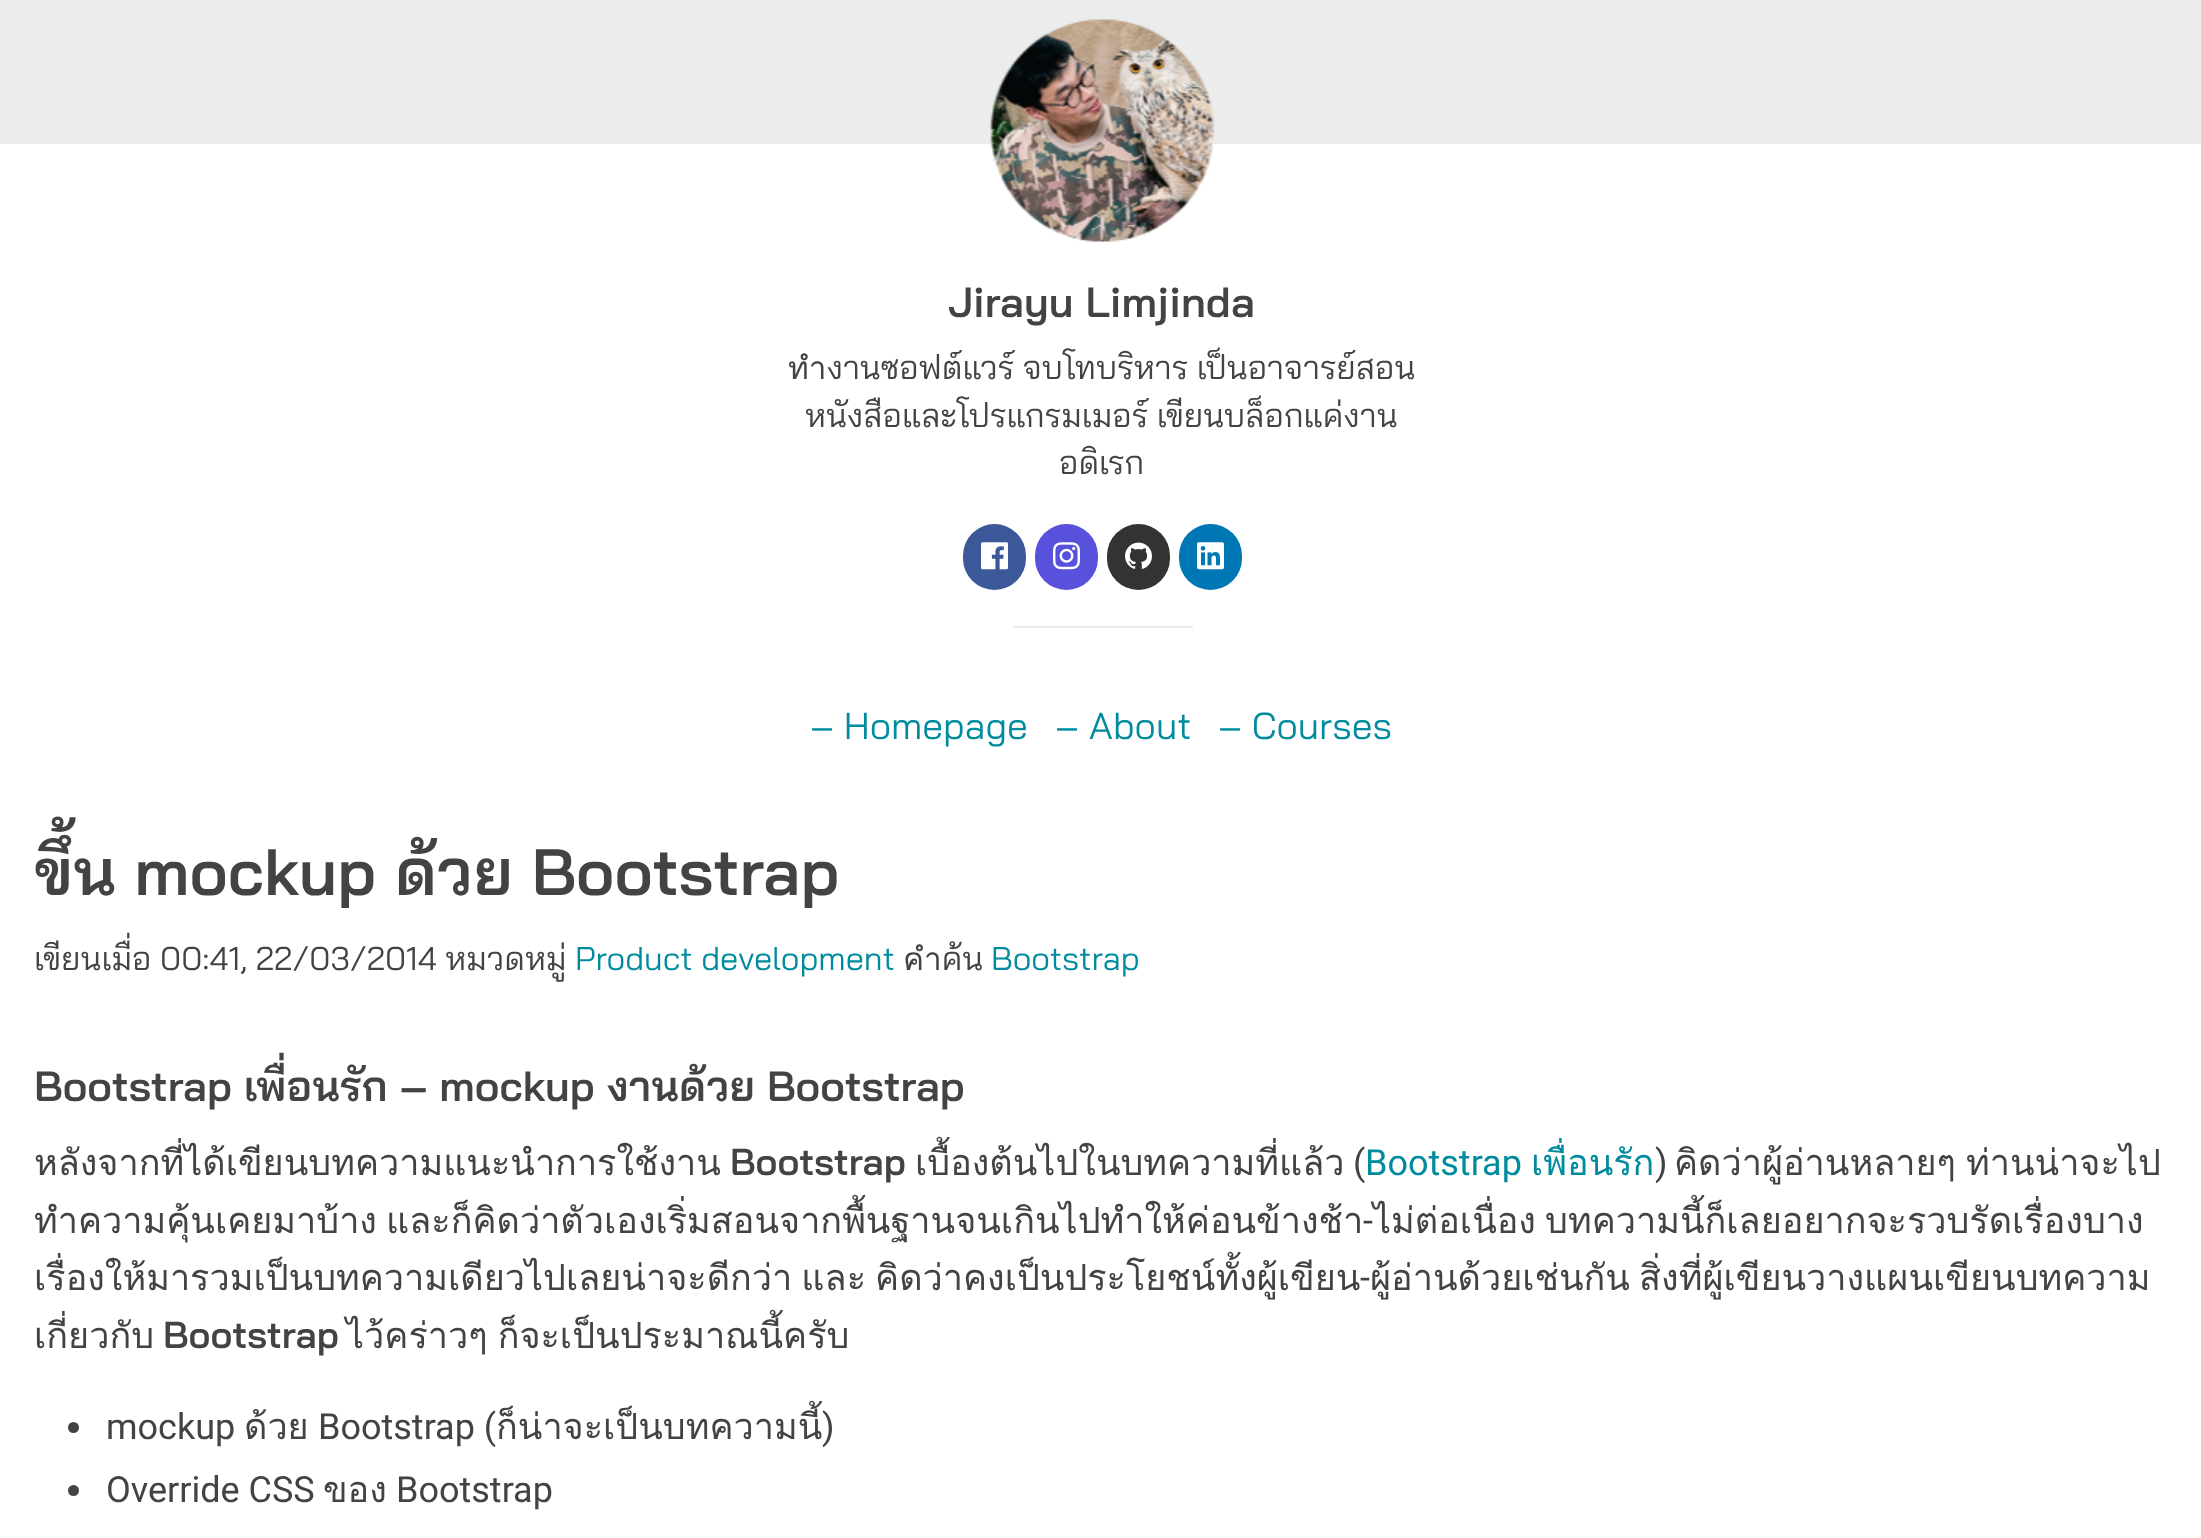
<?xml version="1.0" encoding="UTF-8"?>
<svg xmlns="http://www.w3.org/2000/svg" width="2201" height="1538">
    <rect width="100%" height="100%" fill="#FFFFFF"/>
    <rect x="0" y="0" width="2201" height="144" fill="#ECECEC"/>
    <image x="990" y="19" width="225" height="223" href="img_01.png"/>
    <text x="948" y="317" font-family="Bai Jamjuree" font-size="40.5" font-weight="600" fill="#434343">Jirayu Limjinda</text>
    <text x="788" y="379" font-family="Bai Jamjuree" font-size="31.5" fill="#434343">ทำงานซอฟต์แวร์ จบโทบริหาร เป็นอาจารย์สอน</text>
    <text x="805" y="427" font-family="Bai Jamjuree" font-size="31.5" fill="#434343">หนังสือและโปรแกรมเมอร์ เขียนบล็อกแค่งาน</text>
    <text x="1059" y="474" font-family="Bai Jamjuree" font-size="31.5" fill="#434343">อดิเรก</text>
    <rect x="963" y="524" width="63" height="66" rx="31.5" fill="#3B5998"/>
    <image x="981" y="542" width="27" height="28" href="img_02.png"/>
    <rect x="1035" y="524" width="63" height="66" rx="31.5" fill="#5851DB"/>
    <image x="1053" y="542" width="27" height="28" href="img_03.png"/>
    <rect x="1107" y="524" width="63" height="66" rx="31.5" fill="#333333"/>
    <image x="1125" y="542" width="27" height="27" href="img_04.png"/>
    <rect x="1179" y="524" width="63" height="66" rx="31.5" fill="#0077B5"/>
    <image x="1197" y="542" width="27" height="28" href="img_05.png"/>
    <rect x="1013" y="626" width="180" height="2" fill="#ECECEC"/>
    <text x="810" y="739" font-family="Bai Jamjuree" font-size="36" fill="#008C9E">– Homepage</text>
    <text x="1055" y="739" font-family="Bai Jamjuree" font-size="36" fill="#008C9E">– About</text>
    <text x="1218" y="739" font-family="Bai Jamjuree" font-size="36" fill="#008C9E">– Courses</text>
    <text x="34" y="895" font-family="Bai Jamjuree" font-size="63" font-weight="600" fill="#434343">ขึ้น mockup ด้วย Bootstrap</text>
    <text x="34" y="970" font-family="Bai Jamjuree" font-size="31.5" fill="#434343">เขียนเมื่อ 00:41, 22/03/2014 หมวดหมู่</text>
    <text x="575" y="970" font-family="Bai Jamjuree" font-size="31.5" fill="#008C9E">Product development</text>
    <text x="903" y="970" font-family="Bai Jamjuree" font-size="31.5" fill="#434343">คำค้น</text>
    <text x="991" y="970" font-family="Bai Jamjuree" font-size="31.5" fill="#008C9E">Bootstrap</text>
    <text x="34" y="1101" font-family="Bai Jamjuree" font-size="40.5" font-weight="600" fill="#434343">Bootstrap เพื่อนรัก – mockup งานด้วย Bootstrap</text>
    <text x="34" y="1175" font-family="Loma" font-size="36" fill="#434343">หลังจากที่ได้เขียนบทความแนะนำการใช้งาน</text>
    <text x="915" y="1175" font-family="Loma" font-size="36" fill="#434343">เบื้องต้นไปในบทความที่แล้ว</text>
    <text x="1353" y="1175" font-family="Roboto" font-size="36" fill="#434343">(</text>
    <text x="1531" y="1175" font-family="Loma" font-size="36" fill="#008C9E">เพื่อนรัก</text>
    <text x="1655" y="1175" font-family="Roboto" font-size="36" fill="#434343">)</text>
    <text x="1674" y="1175" word-spacing="-2" font-family="Loma" font-size="36" fill="#434343">คิดว่าผู้อ่านหลายๆ ท่านน่าจะไป</text>
    <text x="730" y="1175" font-family="Bai Jamjuree" font-size="36" font-weight="600" fill="#434343">Bootstrap</text>
    <text x="1365" y="1175" font-family="Roboto" font-size="36" fill="#008C9E">Bootstrap</text>
    <text x="34" y="1233" word-spacing="-3" font-family="Loma" font-size="36" fill="#434343">ทำความคุ้นเคยมาบ้าง และก็คิดว่าตัวเองเริ่มสอนจากพื้นฐานจนเกินไปทำให้ค่อนข้างช้า</text>
    <text x="1363" y="1233" font-family="Roboto" font-size="36" fill="#434343">-</text>
    <text x="1373" y="1233" word-spacing="-3" font-family="Loma" font-size="36" fill="#434343">ไม่ต่อเนื่อง บทความนี้ก็เลยอยากจะรวบรัดเรื่องบาง</text>
    <text x="34" y="1290" word-spacing="-3" font-family="Loma" font-size="36" fill="#434343">เรื่องให้มารวมเป็นบทความเดียวไปเลยน่าจะดีกว่า และ คิดว่าคงเป็นประโยชน์ทั้งผู้เขียน</text>
    <text x="1360" y="1290" font-family="Roboto" font-size="36" fill="#434343">-</text>
    <text x="1370" y="1290" word-spacing="-3" font-family="Loma" font-size="36" fill="#434343">ผู้อ่านด้วยเช่นกัน สิ่งที่ผู้เขียนวางแผนเขียนบทความ</text>
    <text x="34" y="1348" font-family="Loma" font-size="36" fill="#434343">เกี่ยวกับ</text>
    <text x="163" y="1348" font-family="Bai Jamjuree" font-size="36" font-weight="600" fill="#434343">Bootstrap</text>
    <text x="346" y="1348" word-spacing="-2" font-family="Loma" font-size="36" fill="#434343">ไว้คร่าวๆ ก็จะเป็นประมาณนี้ครับ</text>
    <circle cx="73.5" cy="1427.5" r="5.5" fill="#434343"/>
    <text x="106" y="1439" font-family="Roboto" font-size="36" fill="#434343">mockup</text>
    <text x="244" y="1439" font-family="Loma" font-size="36" fill="#434343">ด้วย</text>
    <text x="318" y="1439" font-family="Roboto" font-size="36" fill="#434343">Bootstrap (</text>
    <text x="496" y="1439" font-family="Loma" font-size="36" fill="#434343">ก็น่าจะเป็นบทความนี้</text>
    <text x="822" y="1439" font-family="Roboto" font-size="36" fill="#434343">)</text>
    <circle cx="73.5" cy="1490.5" r="5.5" fill="#434343"/>
    <text x="106" y="1502" font-family="Roboto" font-size="36" fill="#434343">Override CSS</text>
    <text x="323" y="1502" font-family="Loma" font-size="36" fill="#434343">ของ</text>
    <text x="396" y="1502" font-family="Roboto" font-size="36" fill="#434343">Bootstrap</text>
</svg>
